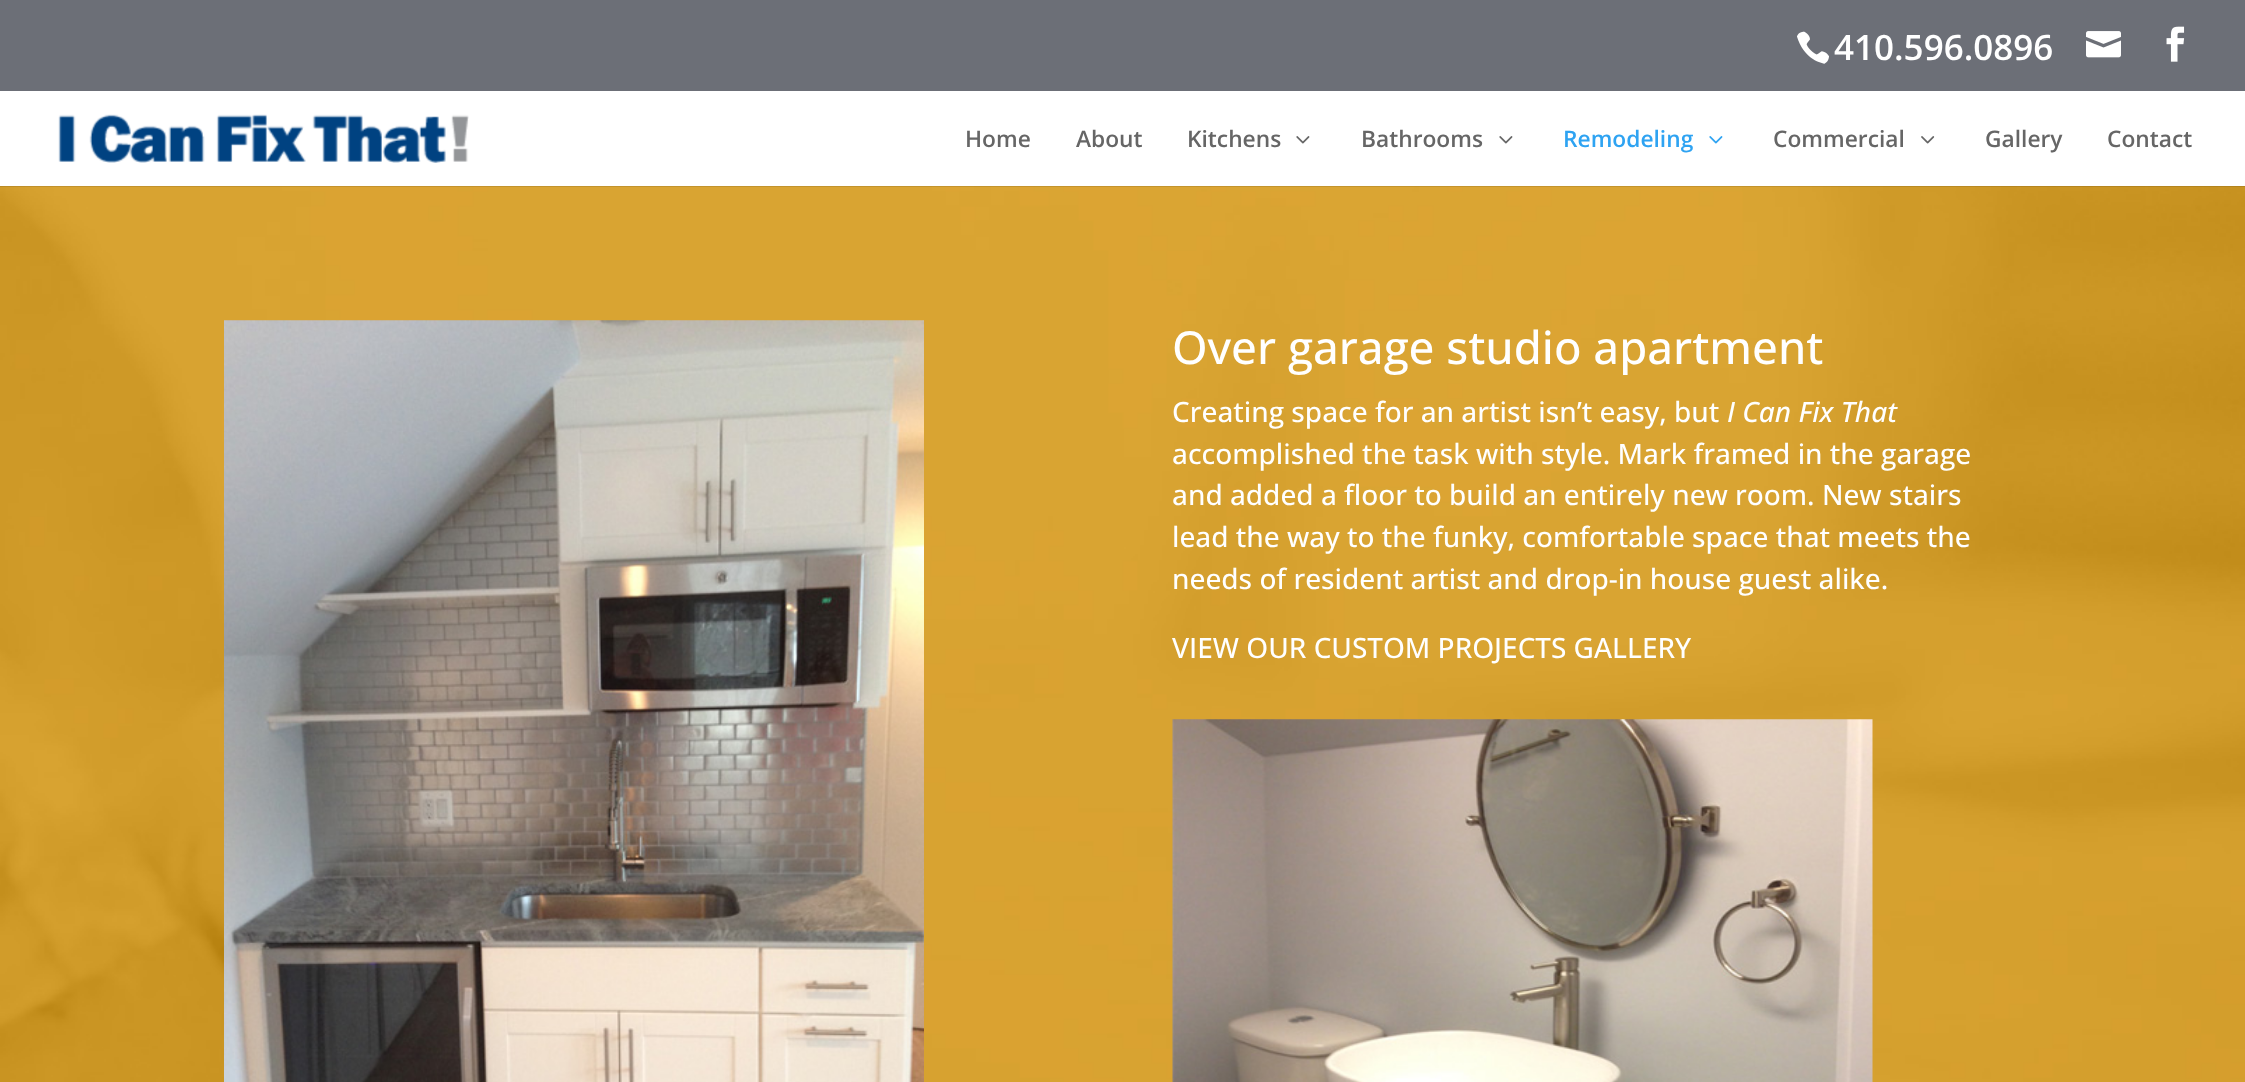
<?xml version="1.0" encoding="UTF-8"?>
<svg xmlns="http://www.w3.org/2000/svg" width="2245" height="1082">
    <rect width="100%" height="100%" fill="#FFFFFF"/>
    <rect x="0" y="0" width="2245" height="91" fill="#6C6F77"/>
    <image x="1797" y="31" width="32" height="33" href="img_01.png"/>
    <text x="1834" y="60" font-family="Open Sans" font-size="35" font-weight="600" fill="#FFFFFF">410.596.0896</text>
    <image x="2086" y="31" width="35" height="27" href="img_02.png"/>
    <image x="2166" y="26" width="19" height="36" href="img_03.png"/>
    <image x="0" y="186" width="2245" height="896" href="img_08.png"/>
    <rect x="0" y="186" width="2245" height="1" fill="#000000" fill-opacity="0.1"/>
    <image x="58" y="114" width="411" height="49" href="img_04.png"/>
    <text x="965" y="147" font-family="Open Sans" font-size="22.75" font-weight="600" fill="#666666">Home</text>
    <text x="1076" y="147" font-family="Open Sans" font-size="22.75" font-weight="600" fill="#666666">About</text>
    <text x="1187" y="147" font-family="Open Sans" font-size="22.75" font-weight="600" fill="#666666">Kitchens</text>
    <image x="1296" y="136" width="14" height="8" href="img_05.png"/>
    <text x="1361" y="147" font-family="Open Sans" font-size="22.75" font-weight="600" fill="#666666">Bathrooms</text>
    <image x="1499" y="136" width="14" height="8" href="img_05.png"/>
    <text x="1563" y="147" font-family="Open Sans" font-size="22.75" font-weight="600" fill="#2EA3F2">Remodeling</text>
    <image x="1709" y="136" width="14" height="8" href="img_06.png"/>
    <text x="1773" y="147" font-family="Open Sans" font-size="22.75" font-weight="600" fill="#666666">Commercial</text>
    <image x="1921" y="136" width="14" height="8" href="img_07.png"/>
    <text x="1985" y="147" font-family="Open Sans" font-size="22.75" font-weight="600" fill="#666666">Gallery</text>
    <text x="2107" y="147" font-family="Open Sans" font-size="22.75" font-weight="600" fill="#666666">Contact</text>
    <image x="224" y="320" width="700" height="762" href="img_09.png"/>
    <text x="1172" y="364" font-family="Open Sans" font-size="45.5" font-weight="500" fill="#FFFFFF">Over garage studio apartment</text>
    <text x="1172" y="422" font-family="Open Sans" font-size="28" font-weight="500" fill="#FFFFFF">Creating space for an artist isn’t easy, but</text>
    <text x="1727" y="422" font-family="Open Sans" font-size="28" font-weight="500" font-style="italic" fill="#FFFFFF">I Can Fix That</text>
    <text font-family="Open Sans" font-size="28" font-weight="500" fill="#FFFFFF">
        <tspan x="1172" y="464">accomplished the task with style. Mark framed in the garage</tspan>
        <tspan x="1172" y="505">and added a floor to build an entirely new room. New stairs</tspan>
        <tspan x="1172" y="547">lead the way to the funky, comfortable space that meets the</tspan>
        <tspan x="1172" y="589">needs of resident artist and drop-in house guest alike.</tspan>
    </text>
    <text x="1172" y="658" font-family="Open Sans" font-size="28" font-weight="500" fill="#FFFFFF">VIEW OUR CUSTOM PROJECTS GALLERY</text>
    <image x="1172" y="719" width="701" height="363" href="img_10.png"/>
</svg>
